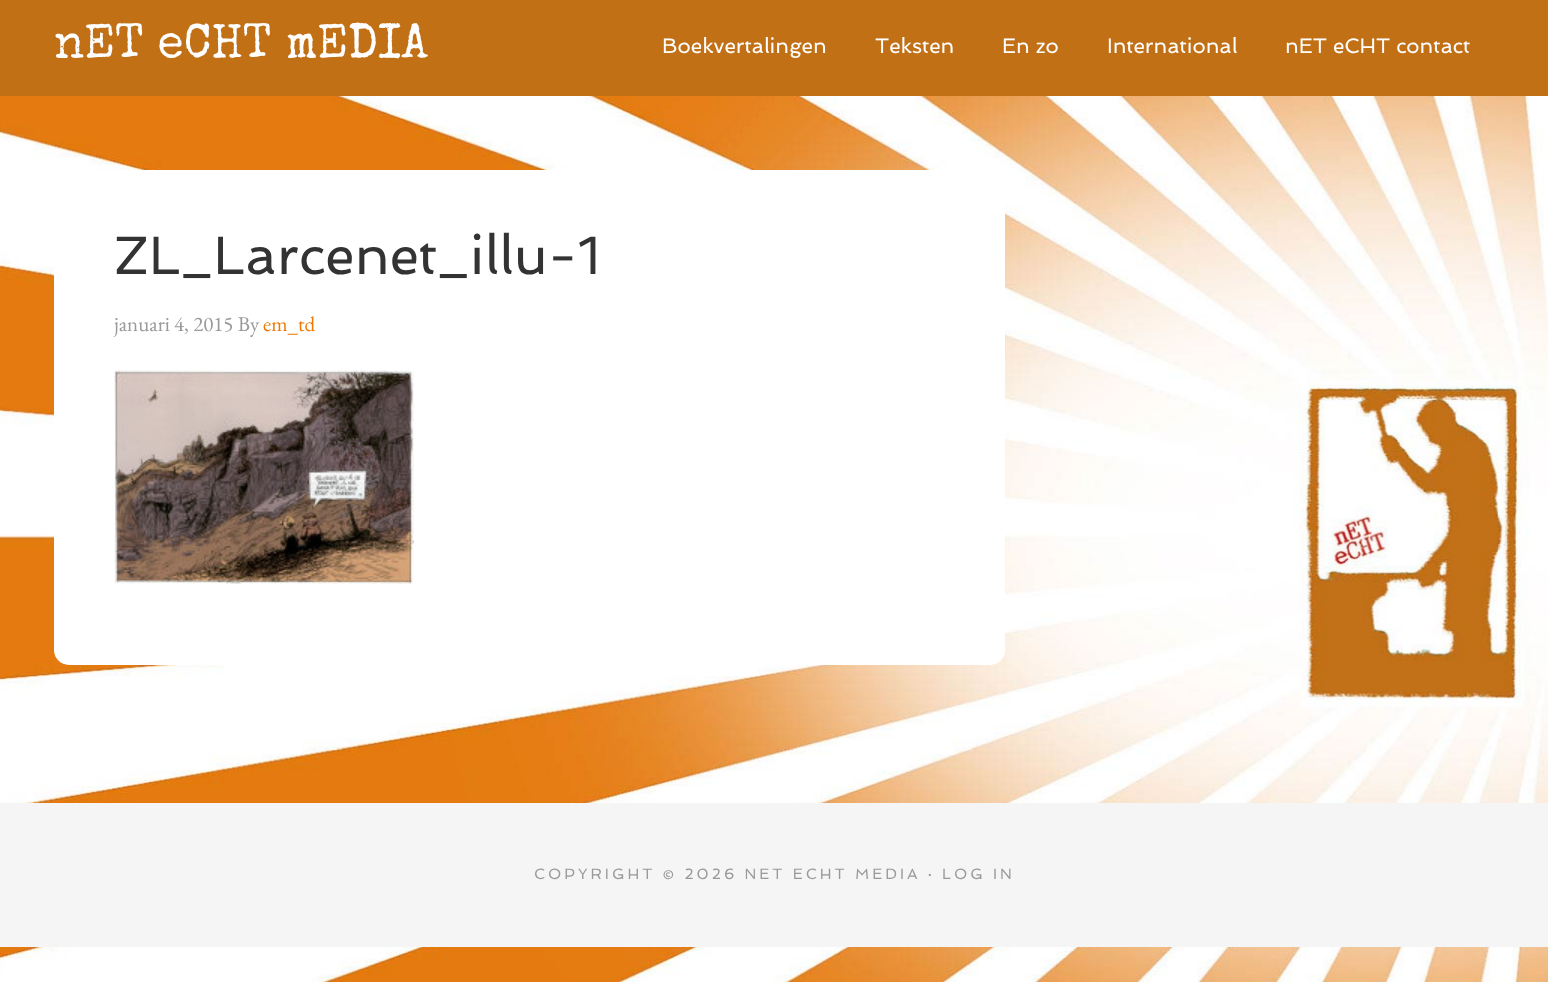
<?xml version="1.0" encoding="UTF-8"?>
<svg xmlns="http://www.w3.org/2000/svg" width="1548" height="982">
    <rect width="100%" height="100%" fill="#FFFFFF"/>
    <rect x="0" y="0" width="1548" height="96" fill="#C27016"/>
    <text x="54" y="57" font-family="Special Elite" font-size="48" fill="#FFFFFF">nET eCHT mEDIA</text>
    <text x="662" y="53" font-family="Spinnaker" font-size="21" fill="#FFFFFF">Boekvertalingen</text>
    <text x="875" y="53" font-family="Spinnaker" font-size="21" fill="#FFFFFF">Teksten</text>
    <text x="1002" y="53" font-family="Spinnaker" font-size="21" fill="#FFFFFF">En zo</text>
    <text x="1107" y="53" font-family="Spinnaker" font-size="21" fill="#FFFFFF">International</text>
    <text x="1285" y="53" font-family="Spinnaker" font-size="21" fill="#FFFFFF">nET eCHT contact</text>
    <image x="0" y="96" width="1548" height="886" href="img_01.png"/>
    <rect x="54" y="170" width="951" height="495" rx="15" fill="#FFFFFF"/>
    <text x="114" y="274" font-family="Spinnaker" font-size="54" fill="#333333">ZL_Larcenet_illu-1</text>
    <text x="114" y="331" font-family="EB Garamond" font-size="21" fill="#999999">januari 4, 2015 By</text>
    <text x="263" y="331" font-family="EB Garamond" font-size="21" fill="#F07802">em_td</text>
    <image x="114" y="370" width="300" height="214" href="img_02.png"/>
    <rect x="0" y="803" width="1548" height="144" fill="#F5F5F5"/>
    <text x="534" y="879" font-family="Spinnaker" font-size="15" letter-spacing="3" fill="#999999">COPYRIGHT © 2026 NET ECHT MEDIA · LOG IN</text>
</svg>
